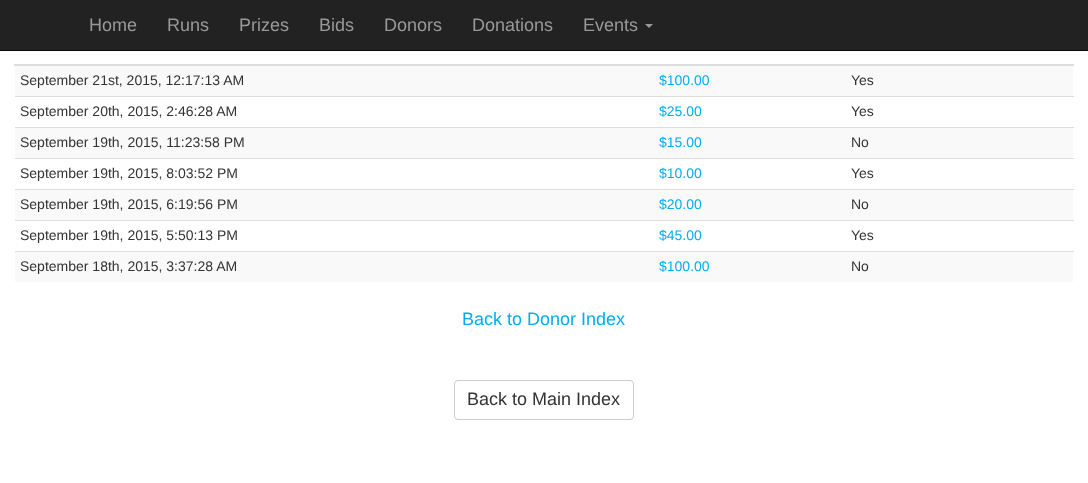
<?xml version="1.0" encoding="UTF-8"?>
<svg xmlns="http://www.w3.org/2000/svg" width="1088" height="483">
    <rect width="100%" height="100%" fill="#FFFFFF"/>
    <rect x="0" y="0" width="1088" height="50" fill="#222222"/>
    <rect x="0" y="50" width="1088" height="1" fill="#080808"/>
    <text x="89" y="31" font-family="Liberation Sans" font-size="18" fill="#999999">Home</text>
    <text x="167" y="31" font-family="Liberation Sans" font-size="18" fill="#999999">Runs</text>
    <text x="239" y="31" font-family="Liberation Sans" font-size="18" fill="#999999">Prizes</text>
    <text x="319" y="31" font-family="Liberation Sans" font-size="18" fill="#999999">Bids</text>
    <text x="384" y="31" font-family="Liberation Sans" font-size="18" fill="#999999">Donors</text>
    <text x="472" y="31" font-family="Liberation Sans" font-size="18" fill="#999999">Donations</text>
    <text x="583" y="31" font-family="Liberation Sans" font-size="18" fill="#999999">Events</text>
    <path d="M 645 24 H 653 L 649 28 Z" fill="#999999"/>
    <rect x="14" y="64" width="1060" height="2" fill="#DDDDDD"/>
    <rect x="15" y="66" width="1058" height="30" fill="#F9F9F9"/>
    <text x="20" y="85" font-family="Liberation Sans" font-size="14" fill="#333333">September 21st, 2015, 12:17:13 AM</text>
    <text x="659" y="85" font-family="Liberation Sans" font-size="14" fill="#00AEEF">$100.00</text>
    <text x="851" y="85" font-family="Liberation Sans" font-size="14" fill="#333333">Yes</text>
    <text x="20" y="116" font-family="Liberation Sans" font-size="14" fill="#333333">September 20th, 2015, 2:46:28 AM</text>
    <text x="659" y="116" font-family="Liberation Sans" font-size="14" fill="#00AEEF">$25.00</text>
    <rect x="15" y="96" width="1059" height="1" fill="#DDDDDD"/>
    <text x="851" y="116" font-family="Liberation Sans" font-size="14" fill="#333333">Yes</text>
    <rect x="15" y="128" width="1058" height="30" fill="#F9F9F9"/>
    <text x="20" y="147" font-family="Liberation Sans" font-size="14" fill="#333333">September 19th, 2015, 11:23:58 PM</text>
    <text x="659" y="147" font-family="Liberation Sans" font-size="14" fill="#00AEEF">$15.00</text>
    <rect x="15" y="127" width="1059" height="1" fill="#DDDDDD"/>
    <text x="851" y="147" font-family="Liberation Sans" font-size="14" fill="#333333">No</text>
    <text x="20" y="178" font-family="Liberation Sans" font-size="14" fill="#333333">September 19th, 2015, 8:03:52 PM</text>
    <text x="659" y="178" font-family="Liberation Sans" font-size="14" fill="#00AEEF">$10.00</text>
    <rect x="15" y="158" width="1059" height="1" fill="#DDDDDD"/>
    <text x="851" y="178" font-family="Liberation Sans" font-size="14" fill="#333333">Yes</text>
    <rect x="15" y="190" width="1058" height="30" fill="#F9F9F9"/>
    <text x="20" y="209" font-family="Liberation Sans" font-size="14" fill="#333333">September 19th, 2015, 6:19:56 PM</text>
    <text x="659" y="209" font-family="Liberation Sans" font-size="14" fill="#00AEEF">$20.00</text>
    <rect x="15" y="189" width="1059" height="1" fill="#DDDDDD"/>
    <text x="851" y="209" font-family="Liberation Sans" font-size="14" fill="#333333">No</text>
    <text x="20" y="240" font-family="Liberation Sans" font-size="14" fill="#333333">September 19th, 2015, 5:50:13 PM</text>
    <text x="659" y="240" font-family="Liberation Sans" font-size="14" fill="#00AEEF">$45.00</text>
    <rect x="15" y="220" width="1059" height="1" fill="#DDDDDD"/>
    <text x="851" y="240" font-family="Liberation Sans" font-size="14" fill="#333333">Yes</text>
    <rect x="15" y="252" width="1058" height="30" fill="#F9F9F9"/>
    <text x="20" y="271" font-family="Liberation Sans" font-size="14" fill="#333333">September 18th, 2015, 3:37:28 AM</text>
    <text x="659" y="271" font-family="Liberation Sans" font-size="14" fill="#00AEEF">$100.00</text>
    <rect x="15" y="251" width="1059" height="1" fill="#DDDDDD"/>
    <text x="851" y="271" font-family="Liberation Sans" font-size="14" fill="#333333">No</text>
    <text x="462" y="325" font-family="Liberation Sans" font-size="18" fill="#00AEEF">Back to Donor Index</text>
    <rect x="454.5" y="380.5" width="179" height="39" rx="3.5" fill="none" stroke="#CCCCCC"/>
    <text x="467" y="405" font-family="Liberation Sans" font-size="18" fill="#333333">Back to Main Index</text>
</svg>
